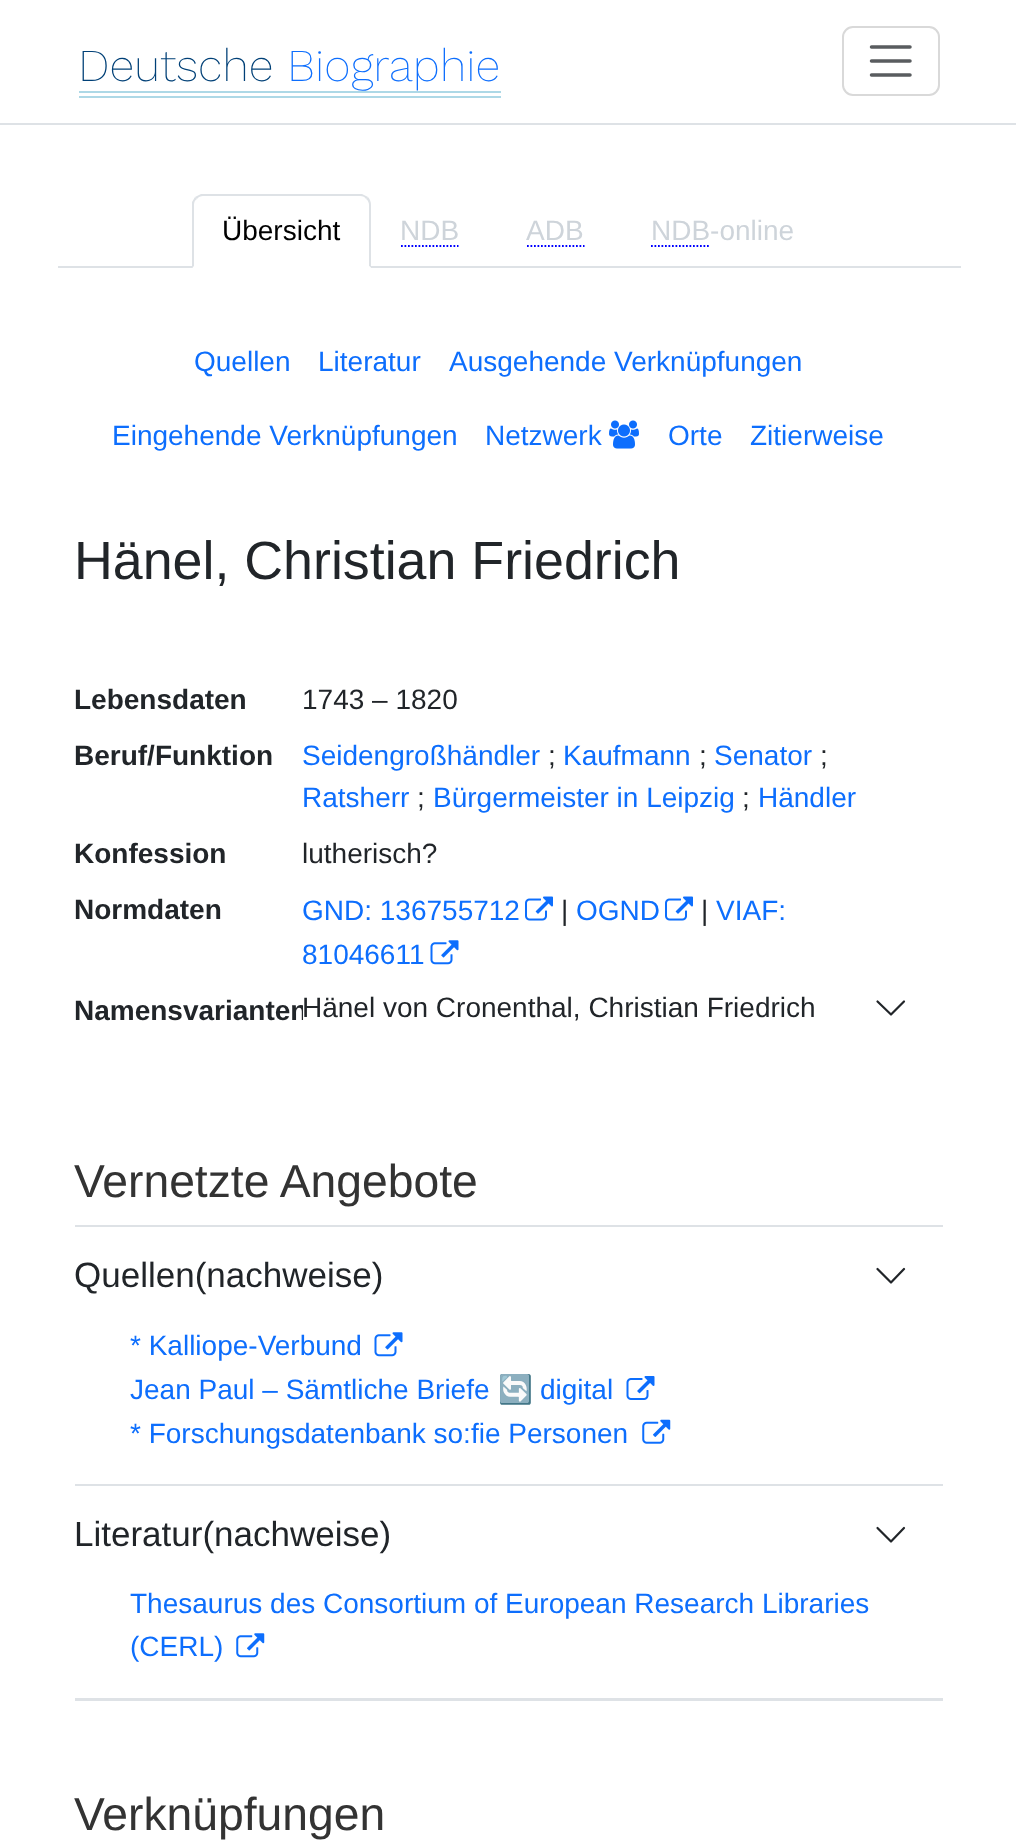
<?xml version="1.0" encoding="UTF-8"?>
<svg xmlns="http://www.w3.org/2000/svg" width="1016" height="1845">
    <rect width="100%" height="100%" fill="#FFFFFF"/>
    <rect x="0" y="123" width="1016" height="2" fill="#DEE2E6"/>
    <text x="78" y="81" font-family="Work Sans" font-size="45.5" font-weight="200" fill="#004077">Deutsche</text>
    <text x="287" y="81" font-family="Work Sans" font-size="45.5" font-weight="200" fill="#0D6EFD">Biographie</text>
    <rect x="79" y="91" width="422" height="2" fill="#ADD8E6"/>
    <rect x="79" y="96" width="422" height="2" fill="#ADD8E6"/>
    <rect x="843" y="27" width="96" height="68" rx="10" fill="none" stroke="#D9D9D9" stroke-width="2"/>
    <path d="M 871.5 47 H 910 M 871.5 61 H 910 M 871.5 75 H 910" fill="none" stroke="#595C5F" stroke-width="3.5" stroke-linecap="round"/>
    <rect x="58" y="266" width="903" height="2" fill="#DEE2E6"/>
    <path d="M 204 194 H 360 C 366 194 371 199 371 205 V 268 H 193 V 205 C 193 199 198 194 204 194 Z" fill="#FFFFFF"/>
    <path d="M 203 196 C 201 196 198 197 197 199 L 195 197 C 197 196 199 195 201 194 H 362 C 364 195 366 196 368 197 L 366 199 C 365 197 363 196 360 196 Z" fill="#DEE2E6"/>
    <path d="M 371 268 V 205 C 371 202 370 199 368 197 L 366 199 C 368 200 369 203 369 205 V 266 Z" fill="#DEE2E6"/>
    <path d="M 371 268 L 369 266 H 194 L 192 268 Z" fill="#FFFFFF"/>
    <path d="M 192 268 V 202 L 195 197 L 197 199 C 195 200 194 202 194 205 V 266 Z" fill="#DEE2E6"/>
    <text x="222" y="240" font-family="Liberation Sans" font-size="28" fill="#000000">Übersicht</text>
    <text x="400" y="240" font-family="Liberation Sans" font-size="28" fill="#CED4DA">NDB</text>
    <path d="M 401 246 H 458.5" fill="none" stroke="#0000FF" stroke-width="1.8" stroke-dasharray="1.75 1.75"/>
    <text x="526" y="240" font-family="Liberation Sans" font-size="28" fill="#CED4DA">ADB</text>
    <path d="M 527 246 H 584.5" fill="none" stroke="#0000FF" stroke-width="1.8" stroke-dasharray="1.75 1.75"/>
    <text x="651" y="240" font-family="Liberation Sans" font-size="28" fill="#CED4DA">NDB-online</text>
    <path d="M 651 246 H 710.5" fill="none" stroke="#0000FF" stroke-width="1.8" stroke-dasharray="1.75 1.75"/>
    <text x="194" y="371" font-family="Liberation Sans" font-size="28" fill="#0D6EFD">Quellen</text>
    <text x="318" y="371" font-family="Liberation Sans" font-size="28" fill="#0D6EFD">Literatur</text>
    <text x="449" y="371" font-family="Liberation Sans" font-size="28" fill="#0D6EFD">Ausgehende Verknüpfungen</text>
    <text x="112" y="445" font-family="Liberation Sans" font-size="28" fill="#0D6EFD">Eingehende Verknüpfungen</text>
    <text x="485" y="445" font-family="Liberation Sans" font-size="28" fill="#0D6EFD">Netzwerk</text>
    <image x="609" y="420" width="30" height="29" href="img_01.png"/>
    <text x="668" y="445" font-family="Liberation Sans" font-size="28" fill="#0D6EFD">Orte</text>
    <text x="750" y="445" font-family="Liberation Sans" font-size="28" fill="#0D6EFD">Zitierweise</text>
    <text x="74" y="579" font-family="Liberation Sans" font-size="53.75" fill="#212529">Hänel, Christian Friedrich</text>
    <text x="74" y="709" font-family="Liberation Sans" font-size="28" font-weight="700" fill="#212529">Lebensdaten</text>
    <text x="302" y="709" font-family="Liberation Sans" font-size="28" fill="#212529">1743 – 1820</text>
    <text x="74" y="765" font-family="Liberation Sans" font-size="28" font-weight="700" fill="#212529">Beruf/Funktion</text>
    <text x="302" y="765" font-family="Liberation Sans" font-size="28" fill="#0D6EFD">Seidengroßhändler</text>
    <text x="548" y="765" font-family="Liberation Sans" font-size="28" fill="#212529">;</text>
    <text x="563" y="765" font-family="Liberation Sans" font-size="28" fill="#0D6EFD">Kaufmann</text>
    <text x="699" y="765" font-family="Liberation Sans" font-size="28" fill="#212529">;</text>
    <text x="714" y="765" font-family="Liberation Sans" font-size="28" fill="#0D6EFD">Senator</text>
    <text x="820" y="765" font-family="Liberation Sans" font-size="28" fill="#212529">;</text>
    <text x="302" y="807" font-family="Liberation Sans" font-size="28" fill="#0D6EFD">Ratsherr</text>
    <text x="417" y="807" font-family="Liberation Sans" font-size="28" fill="#212529">;</text>
    <text x="433" y="807" font-family="Liberation Sans" font-size="28" fill="#0D6EFD">Bürgermeister in Leipzig</text>
    <text x="742" y="807" font-family="Liberation Sans" font-size="28" fill="#212529">;</text>
    <text x="758" y="807" font-family="Liberation Sans" font-size="28" fill="#0D6EFD">Händler</text>
    <text x="74" y="863" font-family="Liberation Sans" font-size="28" font-weight="700" fill="#212529">Konfession</text>
    <text x="302" y="863" font-family="Liberation Sans" font-size="28" fill="#212529">lutherisch?</text>
    <text x="74" y="919" font-family="Liberation Sans" font-size="28" font-weight="700" fill="#212529">Normdaten</text>
    <text x="302" y="920" font-family="Liberation Sans" font-size="28" fill="#0D6EFD">GND: 136755712</text>
    <image x="525" y="896" width="28" height="25" href="img_02.png"/>
    <text x="561" y="920" font-family="Liberation Sans" font-size="28" fill="#212529">|</text>
    <text x="576" y="920" font-family="Liberation Sans" font-size="28" fill="#0D6EFD">OGND</text>
    <image x="665" y="896" width="28" height="25" href="img_02.png"/>
    <text x="701" y="920" font-family="Liberation Sans" font-size="28" fill="#212529">|</text>
    <text x="716" y="920" font-family="Liberation Sans" font-size="28" fill="#0D6EFD">VIAF:</text>
    <text x="302" y="964" font-family="Liberation Sans" font-size="28" fill="#0D6EFD">81046611</text>
    <image x="430" y="940" width="29" height="25" href="img_03.png"/>
    <text x="74" y="1020" font-family="Liberation Sans" font-size="28" font-weight="700" fill="#212529">Namensvarianten</text>
    <rect x="303" y="1005" width="4" height="15" fill="#FFFFFF"/>
    <text x="302" y="1017" font-family="Liberation Sans" font-size="28" fill="#212529">Hänel von Cronenthal, Christian Friedrich</text>
    <path d="M 877.5 1001.5 L 891 1014.5 L 904 1001.5" fill="none" stroke="#212529" stroke-width="2.2" stroke-linecap="round" stroke-linejoin="round"/>
    <text x="74" y="1197" font-family="Liberation Sans" font-size="46.25" fill="#333333">Vernetzte Angebote</text>
    <rect x="75" y="1225" width="868" height="2" fill="#DEE2E6"/>
    <rect x="75" y="1484" width="868" height="2" fill="#DEE2E6"/>
    <text x="74" y="1287" font-family="Liberation Sans" font-size="35" fill="#212529">Quellen(nachweise)</text>
    <path d="M 877.5 1269 L 891 1282.5 L 904 1269" fill="none" stroke="#212529" stroke-width="2.2" stroke-linecap="round" stroke-linejoin="round"/>
    <text x="130" y="1355" font-family="Liberation Sans" font-size="28" fill="#0D6EFD">* Kalliope-Verbund</text>
    <image x="374" y="1332" width="29" height="25" href="img_03.png"/>
    <text x="130" y="1399" font-family="Liberation Sans" font-size="28" fill="#0D6EFD">Jean Paul – Sämtliche Briefe</text>
    <text x="498" y="1399" font-family="Noto Color Emoji" font-size="28" fill="#0D6EFD">🔄</text>
    <text x="540" y="1399" font-family="Liberation Sans" font-size="28" fill="#0D6EFD">digital</text>
    <image x="626" y="1376" width="29" height="24" href="img_04.png"/>
    <text x="130" y="1443" font-family="Liberation Sans" font-size="28" fill="#0D6EFD">* Forschungsdatenbank so:fie Personen</text>
    <image x="642" y="1419" width="29" height="25" href="img_05.png"/>
    <rect x="75" y="1698" width="868" height="3" fill="#DEE2E6"/>
    <text x="74" y="1546" font-family="Liberation Sans" font-size="35" fill="#212529">Literatur(nachweise)</text>
    <path d="M 877.5 1528 L 891 1541.5 L 904 1528" fill="none" stroke="#212529" stroke-width="2.2" stroke-linecap="round" stroke-linejoin="round"/>
    <text font-family="Liberation Sans" font-size="28" fill="#0D6EFD">
        <tspan x="130" y="1613">Thesaurus des Consortium of European Research Libraries</tspan>
        <tspan x="130" y="1656">(CERL)</tspan>
    </text>
    <image x="236" y="1633" width="29" height="25" href="img_06.png"/>
    <text x="74" y="1830" font-family="Liberation Sans" font-size="46.25" fill="#333333">Verknüpfungen</text>
</svg>
